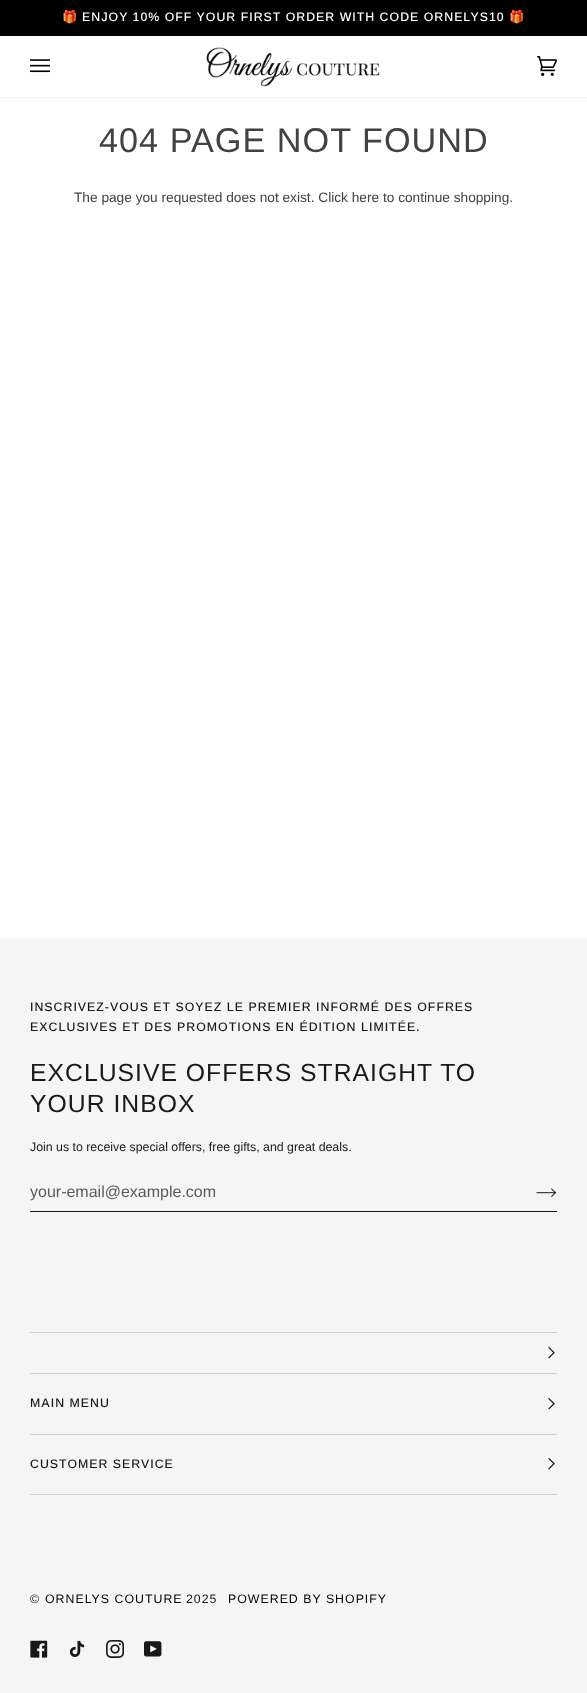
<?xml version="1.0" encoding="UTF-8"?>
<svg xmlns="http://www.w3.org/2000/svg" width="587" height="1693">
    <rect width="100%" height="100%" fill="#FFFFFF"/>
    <rect x="0" y="0" width="587" height="36" fill="#000000"/>
    <text x="62" y="21" font-family="Noto Color Emoji" font-size="12.35" letter-spacing="1" fill="#FFFFFF">🎁</text>
    <text x="82" y="21" font-family="Arimo" font-size="12.35" font-weight="500" letter-spacing="1" fill="#FFFFFF">ENJOY 10% OFF YOUR FIRST ORDER WITH CODE ORNELYS10</text>
    <text x="509" y="21" font-family="Noto Color Emoji" font-size="12.35" letter-spacing="1" fill="#FFFFFF">🎁</text>
    <rect x="0" y="97" width="587" height="1" fill="#F7F5F4"/>
    <image x="30" y="59" width="20" height="14" href="img_01.png"/>
    <image x="206" y="47" width="174" height="40" href="img_02.png"/>
    <image x="537" y="56" width="20" height="20" href="img_03.png"/>
    <text x="99" y="152" font-family="Arimo" font-size="34.25" letter-spacing="1" fill="#424242">404 PAGE NOT FOUND</text>
    <text x="74" y="202" font-family="Arimo" font-size="13.7" fill="#424242">The page you requested does not exist. Click here to continue shopping.</text>
    <rect x="0" y="938" width="587" height="755" fill="#F5F5F5"/>
    <text font-family="Arimo" font-size="12.35" font-weight="500" letter-spacing="1" fill="#191919">
        <tspan x="30" y="1011">INSCRIVEZ-VOUS ET SOYEZ LE PREMIER INFORMÉ DES OFFRES</tspan>
        <tspan x="30" y="1031">EXCLUSIVES ET DES PROMOTIONS EN ÉDITION LIMITÉE.</tspan>
    </text>
    <text font-family="Arimo" font-size="24.75" letter-spacing="1" fill="#191919">
        <tspan x="30" y="1081">EXCLUSIVE OFFERS STRAIGHT TO</tspan>
        <tspan x="30" y="1112">YOUR INBOX</tspan>
    </text>
    <text x="30" y="1151" font-family="Arimo" font-size="12.35" fill="#191919">Join us to receive special offers, free gifts, and great deals.</text>
    <rect x="30" y="1211" width="527" height="1" fill="#191919"/>
    <text x="30" y="1197" font-family="Arimo" font-size="16" fill="#5B5B5B">your-email@example.com</text>
    <image x="536" y="1188" width="21" height="9" href="img_04.png"/>
    <rect x="30" y="1332" width="527" height="1" fill="#D0D0D0"/>
    <rect x="30" y="1373" width="527" height="1" fill="#D0D0D0"/>
    <image x="548" y="1347" width="7" height="12" href="img_05.png"/>
    <rect x="30" y="1434" width="527" height="1" fill="#D0D0D0"/>
    <text x="30" y="1407" font-family="Arimo" font-size="12.35" font-weight="500" letter-spacing="1" fill="#191919">MAIN MENU</text>
    <image x="548" y="1398" width="7" height="12" href="img_05.png"/>
    <rect x="30" y="1494" width="527" height="1" fill="#D0D0D0"/>
    <text x="30" y="1468" font-family="Arimo" font-size="12.35" font-weight="500" letter-spacing="1" fill="#191919">CUSTOMER SERVICE</text>
    <image x="548" y="1458" width="7" height="12" href="img_05.png"/>
    <text x="30" y="1603" font-family="Arimo" font-size="12.35" letter-spacing="1" fill="#191919">©</text>
    <text x="45" y="1603" font-family="Arimo" font-size="12.35" letter-spacing="1" fill="#000000">ORNELYS COUTURE</text>
    <text x="186" y="1603" font-family="Arimo" font-size="12.35" letter-spacing="1" fill="#191919">2025</text>
    <text x="228" y="1603" font-family="Arimo" font-size="12.35" letter-spacing="1" fill="#000000">POWERED BY SHOPIFY</text>
    <image x="30" y="1640" width="18" height="18" href="img_06.png"/>
    <image x="69" y="1640" width="16" height="17" href="img_07.png"/>
    <image x="106" y="1640" width="18" height="18" href="img_08.png"/>
    <image x="144" y="1641" width="18" height="16" href="img_09.png"/>
</svg>
